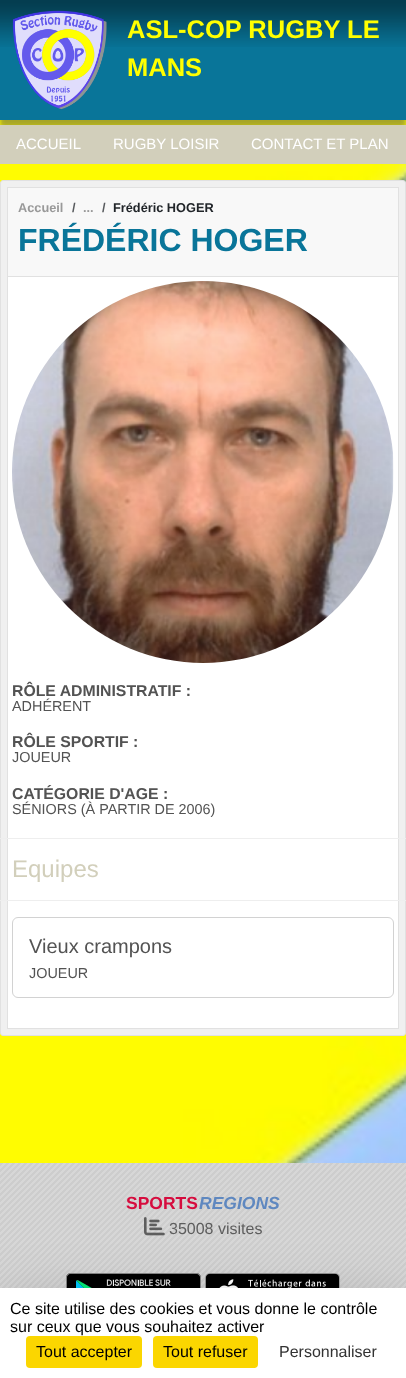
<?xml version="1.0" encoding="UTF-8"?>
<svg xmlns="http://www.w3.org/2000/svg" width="406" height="1378">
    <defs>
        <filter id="blur1" x="-50%" y="-200%" width="200%" height="500%"><feGaussianBlur stdDeviation="2.5"/></filter>
        <filter id="blur2" x="-50%" y="-200%" width="200%" height="500%"><feGaussianBlur stdDeviation="30"/></filter>
    </defs>
    <rect width="100%" height="100%" fill="#FFFFFF"/>
    <image x="0" y="120" width="406" height="1043" href="img_01.png"/>
    <rect x="0" y="7" width="406" height="120" fill="#505050" fill-opacity="0.5" filter="url(#blur1)"/>
    <rect x="0" y="0" width="406" height="120" fill="#097599"/>
    <image x="0" y="0" width="406" height="47" href="img_02.png"/>
    <image x="12" y="10" width="95" height="100" href="img_03.png"/>
    <text font-family="Liberation Sans" font-size="25.5" font-weight="700" fill="#FFFF00">
        <tspan x="127" y="38">ASL-COP RUGBY LE</tspan>
        <tspan x="127" y="76">MANS</tspan>
    </text>
    <rect x="0" y="125" width="406" height="39" fill="#D2CFBB"/>
    <text x="16" y="149" font-family="Liberation Sans" font-size="15" fill="#FFFFFF">ACCUEIL</text>
    <text x="113" y="149" font-family="Liberation Sans" font-size="15" fill="#FFFFFF">RUGBY LOISIR</text>
    <text x="251" y="149" font-family="Liberation Sans" font-size="15" fill="#FFFFFF">CONTACT ET PLAN</text>
    <rect x="0.5" y="180.5" width="405" height="855" rx="2.5" fill="#F0F0F0" stroke="#E1E1E1"/>
    <rect x="8" y="277" width="390" height="751" fill="#FFFFFF"/>
    <rect x="7.5" y="187.5" width="391" height="841" fill="none" stroke="#E1E1E1"/>
    <rect x="8" y="188" width="390" height="88" fill="#F8F8F8"/>
    <rect x="8" y="276" width="390" height="1" fill="#E1E1E1"/>
    <text x="18" y="212" font-family="Liberation Sans" font-size="12.75" font-weight="700" fill="#999999">Accueil</text>
    <text x="72" y="212" font-family="Liberation Sans" font-size="12.75" font-weight="700" fill="#575A5D">/</text>
    <text x="83" y="212" font-family="Liberation Sans" font-size="12.75" font-weight="700" fill="#999999">...</text>
    <text x="102" y="212" font-family="Liberation Sans" font-size="12.75" font-weight="700" fill="#575A5D">/</text>
    <text x="113" y="212" font-family="Liberation Sans" font-size="12.75" font-weight="700" fill="#212529">Frédéric HOGER</text>
    <text x="18" y="251" font-family="Liberation Sans" font-size="32" font-weight="700" fill="#097599">FRÉDÉRIC HOGER</text>
    <image x="12" y="281" width="382" height="382" href="img_04.png"/>
    <text x="12" y="696" font-family="Liberation Sans" font-size="15.8" font-weight="700" fill="#535353">RÔLE ADMINISTRATIF :</text>
    <text x="12" y="711" font-family="Liberation Sans" font-size="14.4" fill="#535353">ADHÉRENT</text>
    <text x="12" y="747" font-family="Liberation Sans" font-size="15.8" font-weight="700" fill="#535353">RÔLE SPORTIF :</text>
    <text x="12" y="762" font-family="Liberation Sans" font-size="14.4" fill="#535353">JOUEUR</text>
    <text x="12" y="799" font-family="Liberation Sans" font-size="15.8" font-weight="700" fill="#535353">CATÉGORIE D'AGE :</text>
    <text x="12" y="814" font-family="Liberation Sans" font-size="14.4" fill="#535353">SÉNIORS (À PARTIR DE 2006)</text>
    <rect x="0" y="838" width="406" height="1" fill="#EEEEEE"/>
    <rect x="0" y="900" width="406" height="1" fill="#EEEEEE"/>
    <text x="12" y="877" font-family="Liberation Sans" font-size="24" fill="#D2CFBB">Equipes</text>
    <rect x="12.5" y="917.5" width="381" height="80" rx="5.5" fill="none" stroke="#D2D2D2"/>
    <text x="29" y="953" font-family="Liberation Sans" font-size="20" fill="#535353">Vieux crampons</text>
    <text x="29" y="978" font-family="Liberation Sans" font-size="14.4" fill="#535353">JOUEUR</text>
    <image x="0" y="1163" width="406" height="125" href="img_05.png"/>
    <text x="126" y="1209" font-family="Liberation Sans" font-size="17.5" font-weight="700" fill="#D60C3E">SPORTS</text>
    <text x="199" y="1209" font-family="Liberation Sans" font-size="17.5" font-weight="700" font-style="italic" fill="#5F88C0">REGIONS</text>
    <image x="144" y="1217" width="21" height="19" href="img_06.png"/>
    <text x="169" y="1234" font-family="Liberation Sans" font-size="16" fill="#5E5E5E">35008 visites</text>
    <image x="66" y="1273" width="135" height="15" href="img_07.png"/>
    <image x="205" y="1273" width="135" height="15" href="img_08.png"/>
    <rect x="0" y="1308" width="406" height="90" fill="#000000" fill-opacity="0.25" filter="url(#blur2)"/>
    <rect x="0" y="1288" width="406" height="90" fill="#FFFFFF"/>
    <text font-family="Liberation Sans" font-size="16" fill="#000000">
        <tspan x="10" y="1314">Ce site utilise des cookies et vous donne le contrôle</tspan>
        <tspan x="10" y="1332">sur ceux que vous souhaitez activer</tspan>
    </text>
    <rect x="26" y="1336" width="116" height="32" rx="4" fill="#FBD600"/>
    <text x="36" y="1357" font-family="Liberation Sans" font-size="16" fill="#000000">Tout accepter</text>
    <rect x="153" y="1336" width="105" height="32" rx="4" fill="#FBD600"/>
    <text x="163" y="1357" font-family="Liberation Sans" font-size="16" fill="#000000">Tout refuser</text>
    <text x="279" y="1357" font-family="Liberation Sans" font-size="16" fill="#333333">Personnaliser</text>
</svg>
